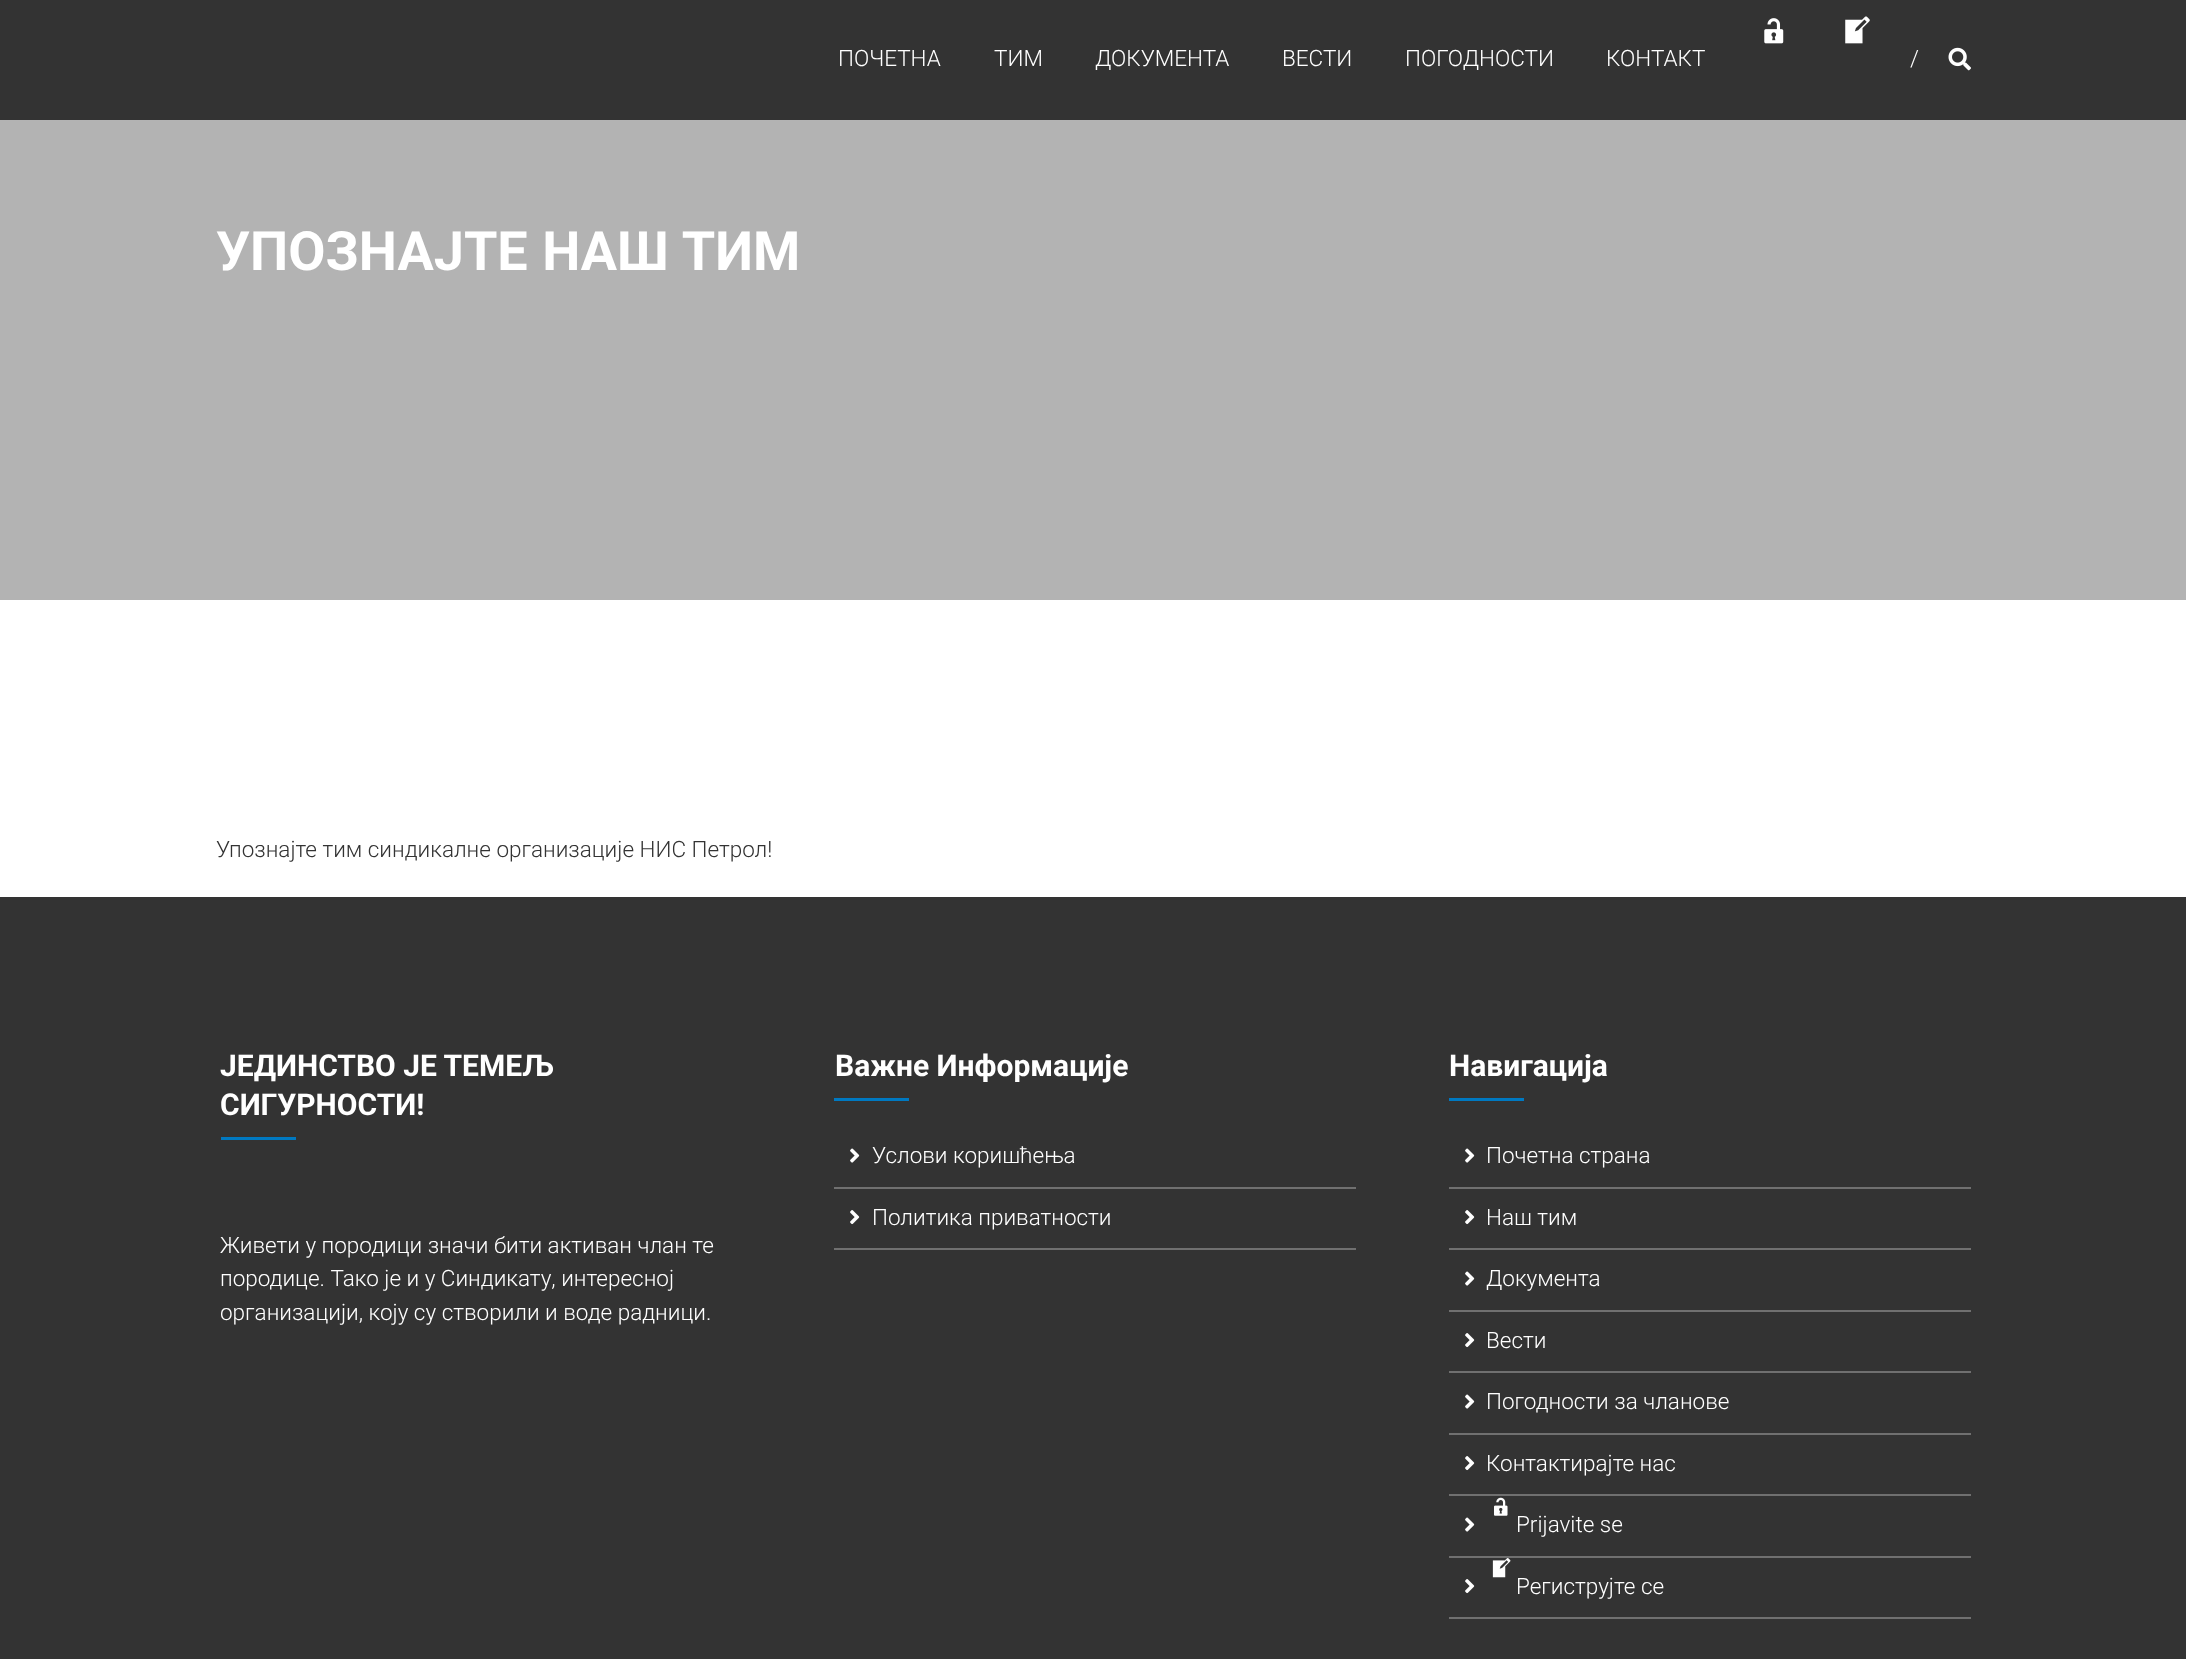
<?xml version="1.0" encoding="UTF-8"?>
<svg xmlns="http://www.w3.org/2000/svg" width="2186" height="1659">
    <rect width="100%" height="100%" fill="#FFFFFF"/>
    <rect x="0" y="0" width="2186" height="120" fill="#333333"/>
    <image x="1764" y="18" width="20" height="26" href="img_01.png"/>
    <image x="1845" y="16" width="25" height="28" href="img_02.png"/>
    <text x="838" y="66" font-family="Roboto" font-size="22.5" font-weight="300" fill="#FFFFFF">ПОЧЕТНА</text>
    <text x="994" y="66" font-family="Roboto" font-size="22.5" font-weight="300" fill="#FFFFFF">ТИМ</text>
    <text x="1095" y="66" font-family="Roboto" font-size="22.5" font-weight="300" fill="#FFFFFF">ДОКУМЕНТА</text>
    <text x="1282" y="66" font-family="Roboto" font-size="22.5" font-weight="300" fill="#FFFFFF">ВЕСТИ</text>
    <text x="1405" y="66" font-family="Roboto" font-size="22.5" font-weight="300" fill="#FFFFFF">ПОГОДНОСТИ</text>
    <text x="1606" y="66" font-family="Roboto" font-size="22.5" font-weight="300" fill="#FFFFFF">КОНТАКТ</text>
    <text x="1910" y="66" font-family="Roboto" font-size="22.5" font-weight="300" fill="#FFFFFF">/</text>
    <image x="1948" y="47" width="23" height="24" href="img_03.png"/>
    <rect x="0" y="120" width="2186" height="480" fill="#B3B3B3"/>
    <text x="216" y="270" word-spacing="1" font-family="Roboto" font-size="54" font-weight="700" fill="#FFFFFF">УПОЗНАЈТЕ НАШ ТИМ</text>
    <text x="216" y="857" font-family="Roboto" font-size="22.5" font-weight="300" fill="#333333">Упознајте тим синдикалне организације НИС Петрол!</text>
    <rect x="0" y="897" width="2186" height="762" fill="#333333"/>
    <text font-family="Roboto" font-size="30" font-weight="700" fill="#FFFFFF">
        <tspan x="220" y="1076">ЈЕДИНСТВО ЈЕ ТЕМЕЉ</tspan>
        <tspan x="220" y="1115">СИГУРНОСТИ!</tspan>
    </text>
    <rect x="221" y="1137" width="75" height="3" fill="#0079C1"/>
    <text font-family="Roboto" font-size="22.5" font-weight="300" fill="#FFFFFF">
        <tspan x="220" y="1253">Живети у породици значи бити активан члан те</tspan>
        <tspan x="220" y="1286">породице. Тако је и у Синдикату, интересној</tspan>
        <tspan x="220" y="1320">организацији, коју су створили и воде радници.</tspan>
    </text>
    <text x="835" y="1076" font-family="Roboto" font-size="30" font-weight="700" fill="#FFFFFF">Важне Информације</text>
    <rect x="834" y="1098" width="75" height="3" fill="#0079C1"/>
    <rect x="834" y="1187" width="522" height="2" fill="#707070"/>
    <image x="850" y="1148" width="10" height="15" href="img_04.png"/>
    <text x="872" y="1163" font-family="Roboto" font-size="22.5" font-weight="300" fill="#FFFFFF">Услови коришћења</text>
    <rect x="834" y="1248" width="522" height="2" fill="#707070"/>
    <image x="850" y="1210" width="10" height="15" href="img_05.png"/>
    <text x="872" y="1225" font-family="Roboto" font-size="22.5" font-weight="300" fill="#FFFFFF">Политика приватности</text>
    <text x="1449" y="1076" font-family="Roboto" font-size="30" font-weight="700" fill="#FFFFFF">Навигација</text>
    <rect x="1449" y="1098" width="75" height="3" fill="#0079C1"/>
    <rect x="1449" y="1187" width="522" height="2" fill="#707070"/>
    <image x="1465" y="1148" width="10" height="15" href="img_04.png"/>
    <text x="1486" y="1163" font-family="Roboto" font-size="22.5" font-weight="300" fill="#FFFFFF">Почетна страна</text>
    <rect x="1449" y="1248" width="522" height="2" fill="#707070"/>
    <image x="1465" y="1210" width="10" height="15" href="img_05.png"/>
    <text x="1486" y="1225" font-family="Roboto" font-size="22.5" font-weight="300" fill="#FFFFFF">Наш тим</text>
    <rect x="1449" y="1310" width="522" height="2" fill="#707070"/>
    <image x="1465" y="1271" width="10" height="15" href="img_04.png"/>
    <text x="1486" y="1286" font-family="Roboto" font-size="22.5" font-weight="300" fill="#FFFFFF">Документа</text>
    <rect x="1449" y="1371" width="522" height="2" fill="#707070"/>
    <image x="1465" y="1333" width="10" height="15" href="img_05.png"/>
    <text x="1486" y="1348" font-family="Roboto" font-size="22.5" font-weight="300" fill="#FFFFFF">Вести</text>
    <rect x="1449" y="1433" width="522" height="2" fill="#707070"/>
    <image x="1465" y="1394" width="10" height="15" href="img_04.png"/>
    <text x="1486" y="1409" font-family="Roboto" font-size="22.5" font-weight="300" fill="#FFFFFF">Погодности за чланове</text>
    <rect x="1449" y="1494" width="522" height="2" fill="#707070"/>
    <image x="1465" y="1456" width="10" height="15" href="img_05.png"/>
    <text x="1486" y="1471" font-family="Roboto" font-size="22.5" font-weight="300" fill="#FFFFFF">Контактирајте нас</text>
    <rect x="1449" y="1556" width="522" height="2" fill="#707070"/>
    <image x="1465" y="1517" width="10" height="15" href="img_04.png"/>
    <image x="1494" y="1497" width="14" height="19" href="img_06.png"/>
    <text x="1516" y="1532" font-family="Roboto" font-size="22.5" font-weight="300" fill="#FFFFFF">Prijavite se</text>
    <rect x="1449" y="1617" width="522" height="2" fill="#707070"/>
    <image x="1465" y="1579" width="10" height="15" href="img_05.png"/>
    <image x="1492" y="1558" width="19" height="20" href="img_07.png"/>
    <text x="1516" y="1594" font-family="Roboto" font-size="22.5" font-weight="300" fill="#FFFFFF">Региструјте се</text>
</svg>
